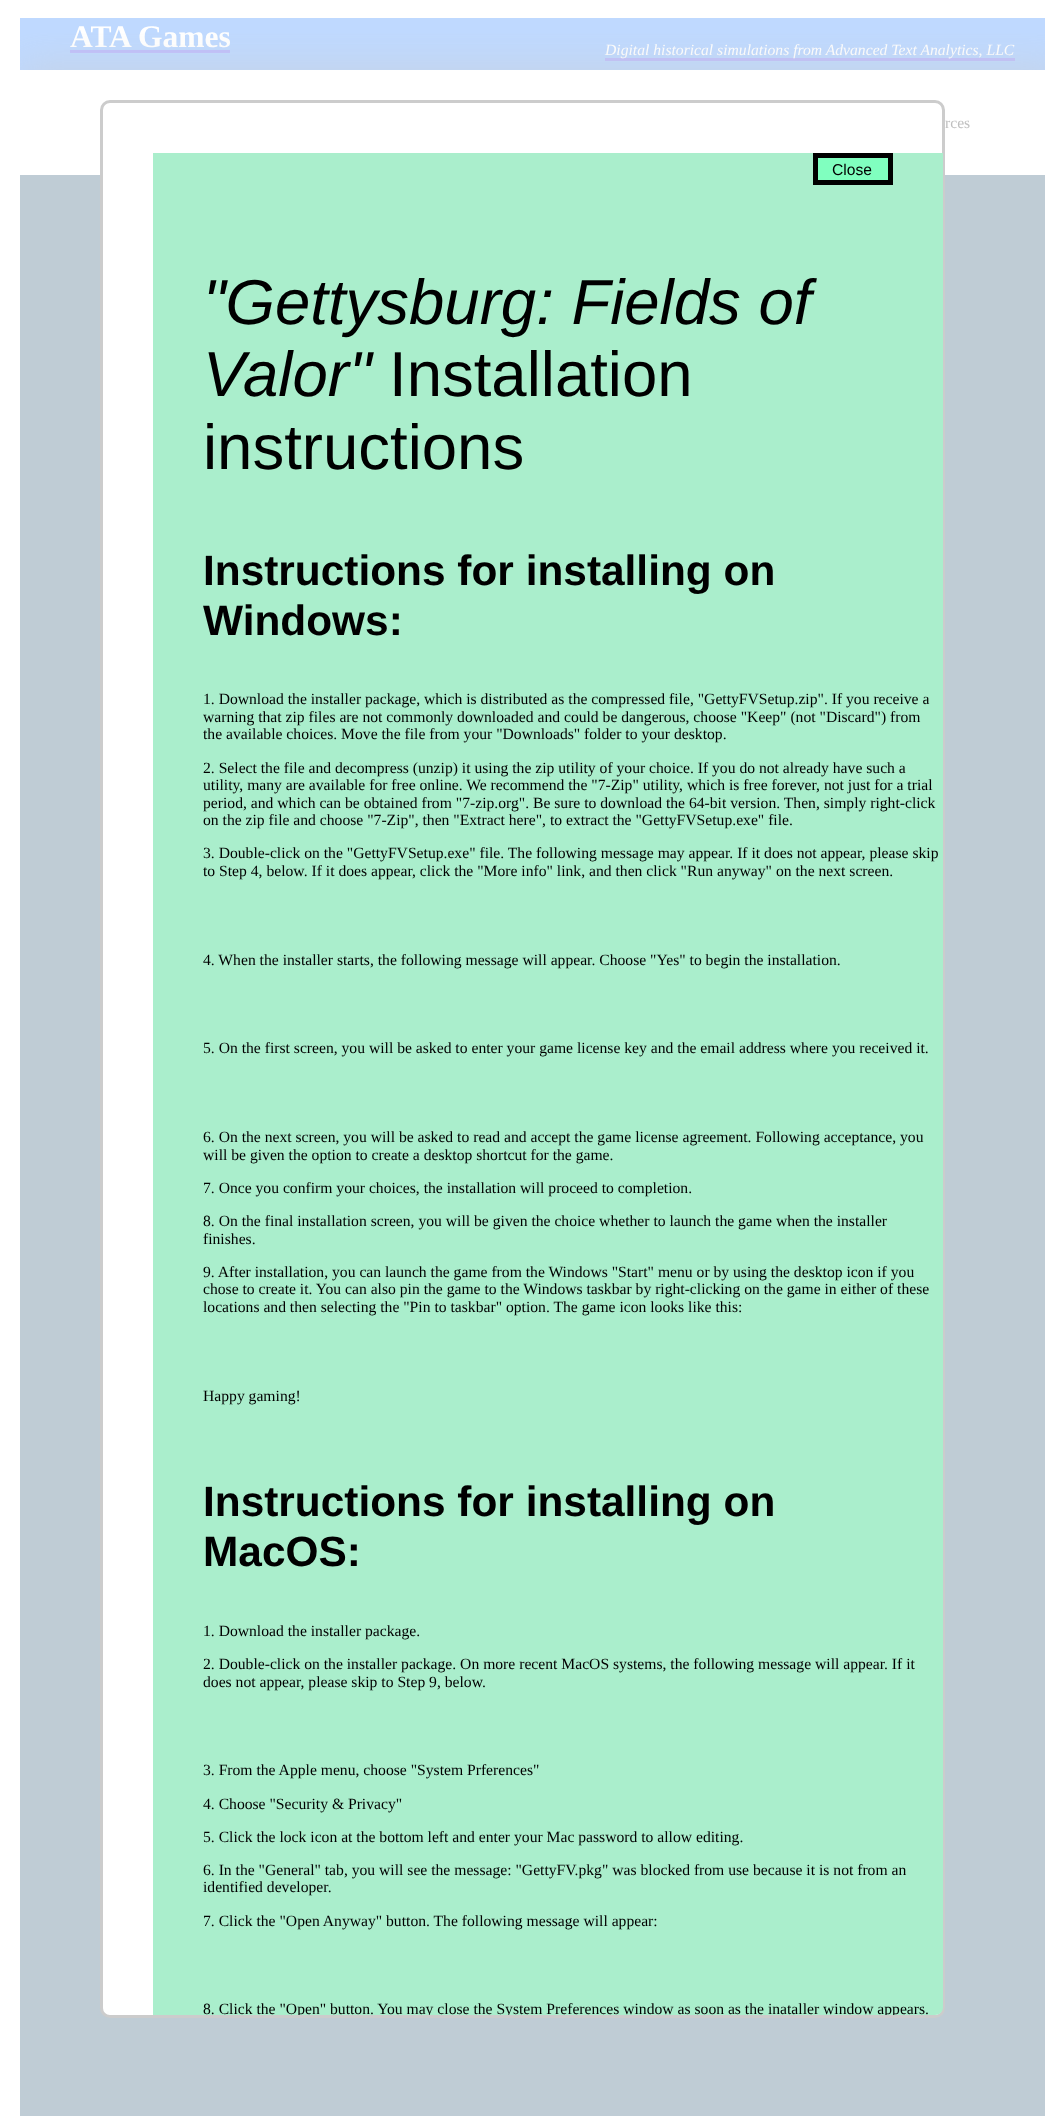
<?xml version="1.0" encoding="UTF-8"?>
<svg xmlns="http://www.w3.org/2000/svg" width="1045" height="2116">
    <defs>
        <clipPath id="clip1"><rect x="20" y="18" width="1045" height="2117"/></clipPath>
        <clipPath id="clip2"><rect x="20" y="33" width="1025" height="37"/></clipPath>
        <filter id="blur1" x="-50%" y="-200%" width="200%" height="500%"><feGaussianBlur stdDeviation="19"/></filter>
        <clipPath id="clip3"><rect x="103" y="103" width="840" height="1912" rx="8"/></clipPath>
    </defs>
    <rect width="100%" height="100%" fill="#FFFFFF"/>
    <rect x="20" y="18" width="1025" height="52" fill="#BFD9FF"/>
    <text x="70" y="47" font-family="Liberation Serif" font-size="31.5" font-weight="700" fill="#FFFFFF">ATA Games</text>
    <rect x="70" y="50" width="160" height="3" fill="#BFBFFB"/>
    <rect x="605" y="58" width="410" height="3" fill="#BFBFFB"/>
    <text x="605" y="55" font-family="Liberation Serif" font-size="15.65" font-style="italic" fill="#FFFFFF">Digital historical simulations from Advanced Text Analytics, LLC</text>
    <g clip-path="url(#clip1)">
        <g clip-path="url(#clip2)">
            <rect x="20" y="65" width="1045" height="105" fill="#CCCCCC" fill-opacity="0.45" filter="url(#blur1)"/>
        </g>
    </g>
    <text x="945" y="128" font-family="Liberation Serif" font-size="15.65" fill="#BFBFBF">rces</text>
    <rect x="20" y="175" width="1025" height="1941" fill="#BFCCD5"/>
    <rect x="101.5" y="101.5" width="842" height="1915" rx="8.5" fill="#FFFFFF" stroke="#CCCCCC" stroke-width="3"/>
    <path d="M 153 153 H 943 V 2007 C 943 2011.5 939.5 2015 935 2015 H 153 Z" fill="#AAEECC"/>
    <rect x="815.5" y="155.5" width="75" height="27" fill="#80FFBF" stroke="#000000" stroke-width="5"/>
    <text x="832" y="175" font-family="Liberation Sans" font-size="15.65" fill="#000000">Close</text>
    <text font-family="Liberation Sans" font-size="63.5" font-style="italic" fill="#000000">
        <tspan x="203" y="324">"Gettysburg: Fields of</tspan>
        <tspan x="203" y="396">Valor"</tspan>
    </text>
    <text x="389" y="396" font-family="Liberation Sans" font-size="63.5" fill="#000000">Installation</text>
    <text x="203" y="469" font-family="Liberation Sans" font-size="63.5" fill="#000000">instructions</text>
    <text font-family="Liberation Sans" font-size="42.4" font-weight="700" fill="#000000">
        <tspan x="203" y="585">Instructions for installing on</tspan>
        <tspan x="203" y="635">Windows:</tspan>
    </text>
    <text font-family="Liberation Serif" font-size="15.65" fill="#000000">
        <tspan x="203" y="704">1. Download the installer package, which is distributed as the compressed file, "GettyFVSetup.zip". If you receive a</tspan>
        <tspan x="203" y="722">warning that zip files are not commonly downloaded and could be dangerous, choose "Keep" (not "Discard") from</tspan>
        <tspan x="203" y="739">the available choices. Move the file from your "Downloads" folder to your desktop.</tspan>
    </text>
    <text font-family="Liberation Serif" font-size="15.65" fill="#000000">
        <tspan x="203" y="773">2. Select the file and decompress (unzip) it using the zip utility of your choice. If you do not already have such a</tspan>
        <tspan x="203" y="790">utility, many are available for free online. We recommend the "7-Zip" utility, which is free forever, not just for a trial</tspan>
        <tspan x="203" y="808">period, and which can be obtained from "7-zip.org". Be sure to download the 64-bit version. Then, simply right-click</tspan>
        <tspan x="203" y="825">on the zip file and choose "7-Zip", then "Extract here", to extract the "GettyFVSetup.exe" file.</tspan>
    </text>
    <text font-family="Liberation Serif" font-size="15.65" fill="#000000">
        <tspan x="203" y="858">3. Double-click on the "GettyFVSetup.exe" file. The following message may appear. If it does not appear, please skip</tspan>
        <tspan x="203" y="876">to Step 4, below. If it does appear, click the "More info" link, and then click "Run anyway" on the next screen.</tspan>
    </text>
    <text x="203" y="965" font-family="Liberation Serif" font-size="15.65" fill="#000000">4. When the installer starts, the following message will appear. Choose "Yes" to begin the installation.</text>
    <text x="203" y="1053" font-family="Liberation Serif" font-size="15.65" fill="#000000">5. On the first screen, you will be asked to enter your game license key and the email address where you received it.</text>
    <text font-family="Liberation Serif" font-size="15.65" fill="#000000">
        <tspan x="203" y="1142">6. On the next screen, you will be asked to read and accept the game license agreement. Following acceptance, you</tspan>
        <tspan x="203" y="1160">will be given the option to create a desktop shortcut for the game.</tspan>
    </text>
    <text x="203" y="1193" font-family="Liberation Serif" font-size="15.65" fill="#000000">7. Once you confirm your choices, the installation will proceed to completion.</text>
    <text font-family="Liberation Serif" font-size="15.65" fill="#000000">
        <tspan x="203" y="1226">8. On the final installation screen, you will be given the choice whether to launch the game when the installer</tspan>
        <tspan x="203" y="1244">finishes.</tspan>
    </text>
    <text font-family="Liberation Serif" font-size="15.65" fill="#000000">
        <tspan x="203" y="1277">9. After installation, you can launch the game from the Windows "Start" menu or by using the desktop icon if you</tspan>
        <tspan x="203" y="1294">chose to create it. You can also pin the game to the Windows taskbar by right-clicking on the game in either of these</tspan>
        <tspan x="203" y="1312">locations and then selecting the "Pin to taskbar" option. The game icon looks like this:</tspan>
    </text>
    <text x="203" y="1401" font-family="Liberation Serif" font-size="15.65" fill="#000000">Happy gaming!</text>
    <text font-family="Liberation Sans" font-size="42.4" font-weight="700" fill="#000000">
        <tspan x="203" y="1516">Instructions for installing on</tspan>
        <tspan x="203" y="1566">MacOS:</tspan>
    </text>
    <text x="203" y="1636" font-family="Liberation Serif" font-size="15.65" fill="#000000">1. Download the installer package.</text>
    <text font-family="Liberation Serif" font-size="15.65" fill="#000000">
        <tspan x="203" y="1669">2. Double-click on the installer package. On more recent MacOS systems, the following message will appear. If it</tspan>
        <tspan x="203" y="1687">does not appear, please skip to Step 9, below.</tspan>
    </text>
    <text x="203" y="1775" font-family="Liberation Serif" font-size="15.65" fill="#000000">3. From the Apple menu, choose "System Prferences"</text>
    <text x="203" y="1809" font-family="Liberation Serif" font-size="15.65" fill="#000000">4. Choose "Security &amp; Privacy"</text>
    <text x="203" y="1842" font-family="Liberation Serif" font-size="15.65" fill="#000000">5. Click the lock icon at the bottom left and enter your Mac password to allow editing.</text>
    <text font-family="Liberation Serif" font-size="15.65" fill="#000000">
        <tspan x="203" y="1875">6. In the "General" tab, you will see the message: "GettyFV.pkg" was blocked from use because it is not from an</tspan>
        <tspan x="203" y="1892">identified developer.</tspan>
    </text>
    <text x="203" y="1926" font-family="Liberation Serif" font-size="15.65" fill="#000000">7. Click the "Open Anyway" button. The following message will appear:</text>
    <g clip-path="url(#clip3)">
        <text x="203" y="2014" font-family="Liberation Serif" font-size="15.65" fill="#000000">8. Click the "Open" button. You may close the System Preferences window as soon as the inataller window appears.</text>
    </g>
</svg>
